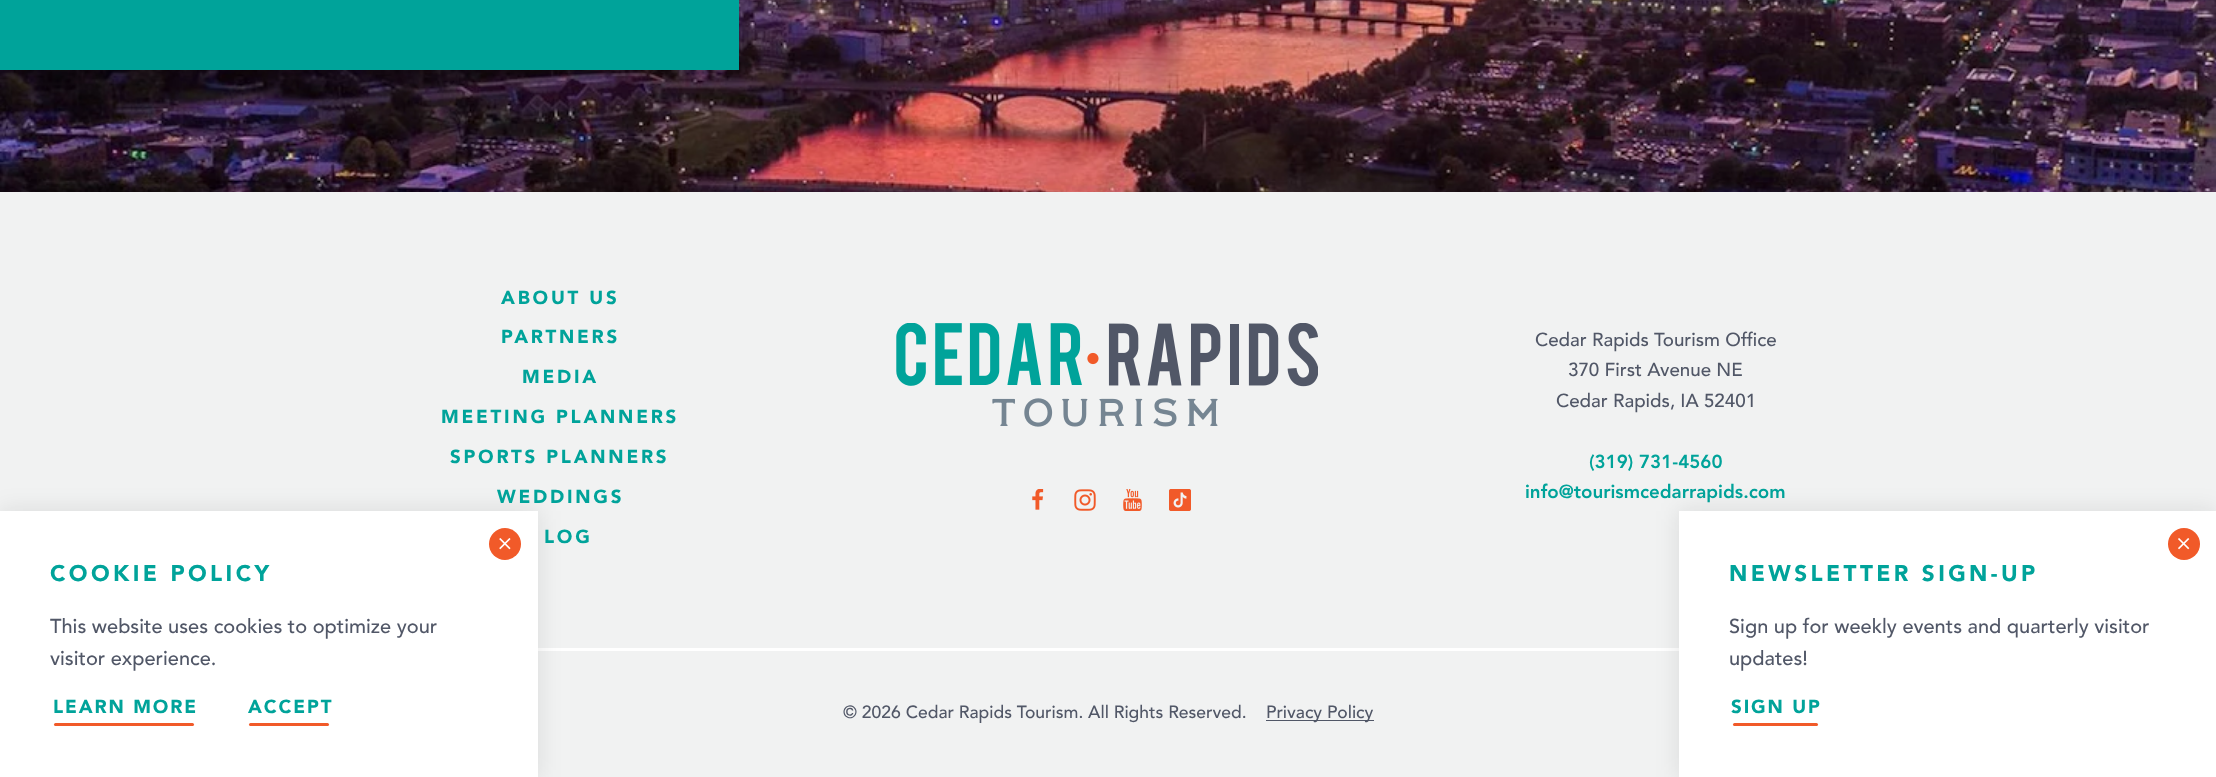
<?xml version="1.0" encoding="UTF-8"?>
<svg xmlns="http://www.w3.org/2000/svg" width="2216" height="777">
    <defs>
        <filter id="blur1" x="-50%" y="-200%" width="200%" height="500%"><feGaussianBlur stdDeviation="12.5"/></filter>
        <filter id="blur2" x="-50%" y="-200%" width="200%" height="500%"><feGaussianBlur stdDeviation="19"/></filter>
    </defs>
    <rect width="100%" height="100%" fill="#F1F2F2"/>
    <rect x="538" y="648" width="1141" height="3" fill="#FFFFFF"/>
    <rect x="0" y="511" width="538" height="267" fill="#000000" fill-opacity="0.1" filter="url(#blur1)"/>
    <rect x="0" y="511" width="538" height="266" fill="#FFFFFF"/>
    <circle cx="505" cy="544" r="16" fill="#F15A29"/>
    <image x="499" y="538" width="12" height="12" href="img_01.png"/>
    <text x="50" y="581" font-family="Avenir" font-size="22.5" font-weight="900" letter-spacing="3.4" fill="#00A39A">COOKIE POLICY</text>
    <text font-family="Avenir" font-size="20" font-weight="500" fill="#515767">
        <tspan x="50" y="633">This website uses cookies to optimize your</tspan>
        <tspan x="50" y="665">visitor experience.</tspan>
    </text>
    <text x="53" y="713" font-family="Avenir" font-size="18.75" font-weight="900" letter-spacing="1.9" fill="#00A39A">LEARN MORE</text>
    <rect x="54" y="723" width="140" height="3" rx="1.5" fill="#F15A29"/>
    <text x="248" y="713" font-family="Avenir" font-size="18.75" font-weight="900" letter-spacing="1.9" fill="#00A39A">ACCEPT</text>
    <rect x="249" y="723" width="80" height="3" rx="1.5" fill="#F15A29"/>
    <image x="0" y="0" width="2216" height="192" href="img_02.png"/>
    <rect x="0" y="-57" width="739" height="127" fill="#000000" fill-opacity="0.15" filter="url(#blur2)"/>
    <rect x="0" y="0" width="739" height="70" fill="#00A39A"/>
    <text x="501" y="304" font-family="Avenir" font-size="18.75" font-weight="900" letter-spacing="2.75" fill="#00A39A">ABOUT US</text>
    <text x="501" y="343" font-family="Avenir" font-size="18.75" font-weight="900" letter-spacing="2.75" fill="#00A39A">PARTNERS</text>
    <text x="522" y="383" font-family="Avenir" font-size="18.75" font-weight="900" letter-spacing="2.75" fill="#00A39A">MEDIA</text>
    <text x="441" y="423" font-family="Avenir" font-size="18.75" font-weight="900" letter-spacing="2.75" fill="#00A39A">MEETING PLANNERS</text>
    <text x="450" y="463" font-family="Avenir" font-size="18.75" font-weight="900" letter-spacing="2.75" fill="#00A39A">SPORTS PLANNERS</text>
    <text x="497" y="503" font-family="Avenir" font-size="18.75" font-weight="900" letter-spacing="2.75" fill="#00A39A">WEDDINGS</text>
    <text x="544" y="543" font-family="Avenir" font-size="18.75" font-weight="900" letter-spacing="2.75" fill="#00A39A">LOG</text>
    <image x="896" y="323" width="422" height="104" href="img_03.png"/>
    <image x="1032" y="489" width="12" height="21" href="img_04.png"/>
    <image x="1074" y="489" width="22" height="22" href="img_05.png"/>
    <image x="1123" y="489" width="19" height="22" href="img_06.png"/>
    <image x="1169" y="489" width="22" height="22" href="img_07.png"/>
    <text x="1535" y="346" font-family="Avenir" font-size="18.75" font-weight="500" fill="#515767">Cedar Rapids Tourism Office</text>
    <text x="1568" y="376" font-family="Avenir" font-size="18.75" font-weight="500" fill="#515767">370 First Avenue NE</text>
    <text x="1556" y="407" font-family="Avenir" font-size="18.75" font-weight="500" fill="#515767">Cedar Rapids, IA 52401</text>
    <text x="1589" y="468" font-family="'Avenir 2'" font-size="18.75" font-weight="900" fill="#00A39A">(319) 731-4560</text>
    <text x="1525" y="498" font-family="'Avenir 2'" font-size="18.75" font-weight="900" fill="#00A39A">info@tourismcedarrapids.com</text>
    <rect x="1679" y="511" width="537" height="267" fill="#000000" fill-opacity="0.1" filter="url(#blur1)"/>
    <rect x="1679" y="511" width="537" height="266" fill="#FFFFFF"/>
    <circle cx="2184" cy="544" r="16" fill="#F15A29"/>
    <image x="2178" y="538" width="12" height="12" href="img_08.png"/>
    <text x="1729" y="581" font-family="Avenir" font-size="22.5" font-weight="900" letter-spacing="3.4" fill="#00A39A">NEWSLETTER SIGN-UP</text>
    <text font-family="Avenir" font-size="20" font-weight="500" fill="#515767">
        <tspan x="1729" y="633">Sign up for weekly events and quarterly visitor</tspan>
        <tspan x="1729" y="665">updates!</tspan>
    </text>
    <text x="1731" y="713" font-family="Avenir" font-size="18.75" font-weight="900" letter-spacing="1.9" fill="#00A39A">SIGN UP</text>
    <rect x="1733" y="723" width="85" height="3" rx="1.5" fill="#F15A29"/>
    <text x="843" y="718" font-family="Avenir" font-size="17.5" font-weight="500" fill="#515767">© 2026 Cedar Rapids Tourism. All Rights Reserved.</text>
    <rect x="1266" y="720" width="108" height="1" fill="#515767"/>
    <text x="1266" y="718" font-family="Avenir" font-size="17.5" font-weight="500" fill="#515767">Privacy Policy</text>
</svg>
